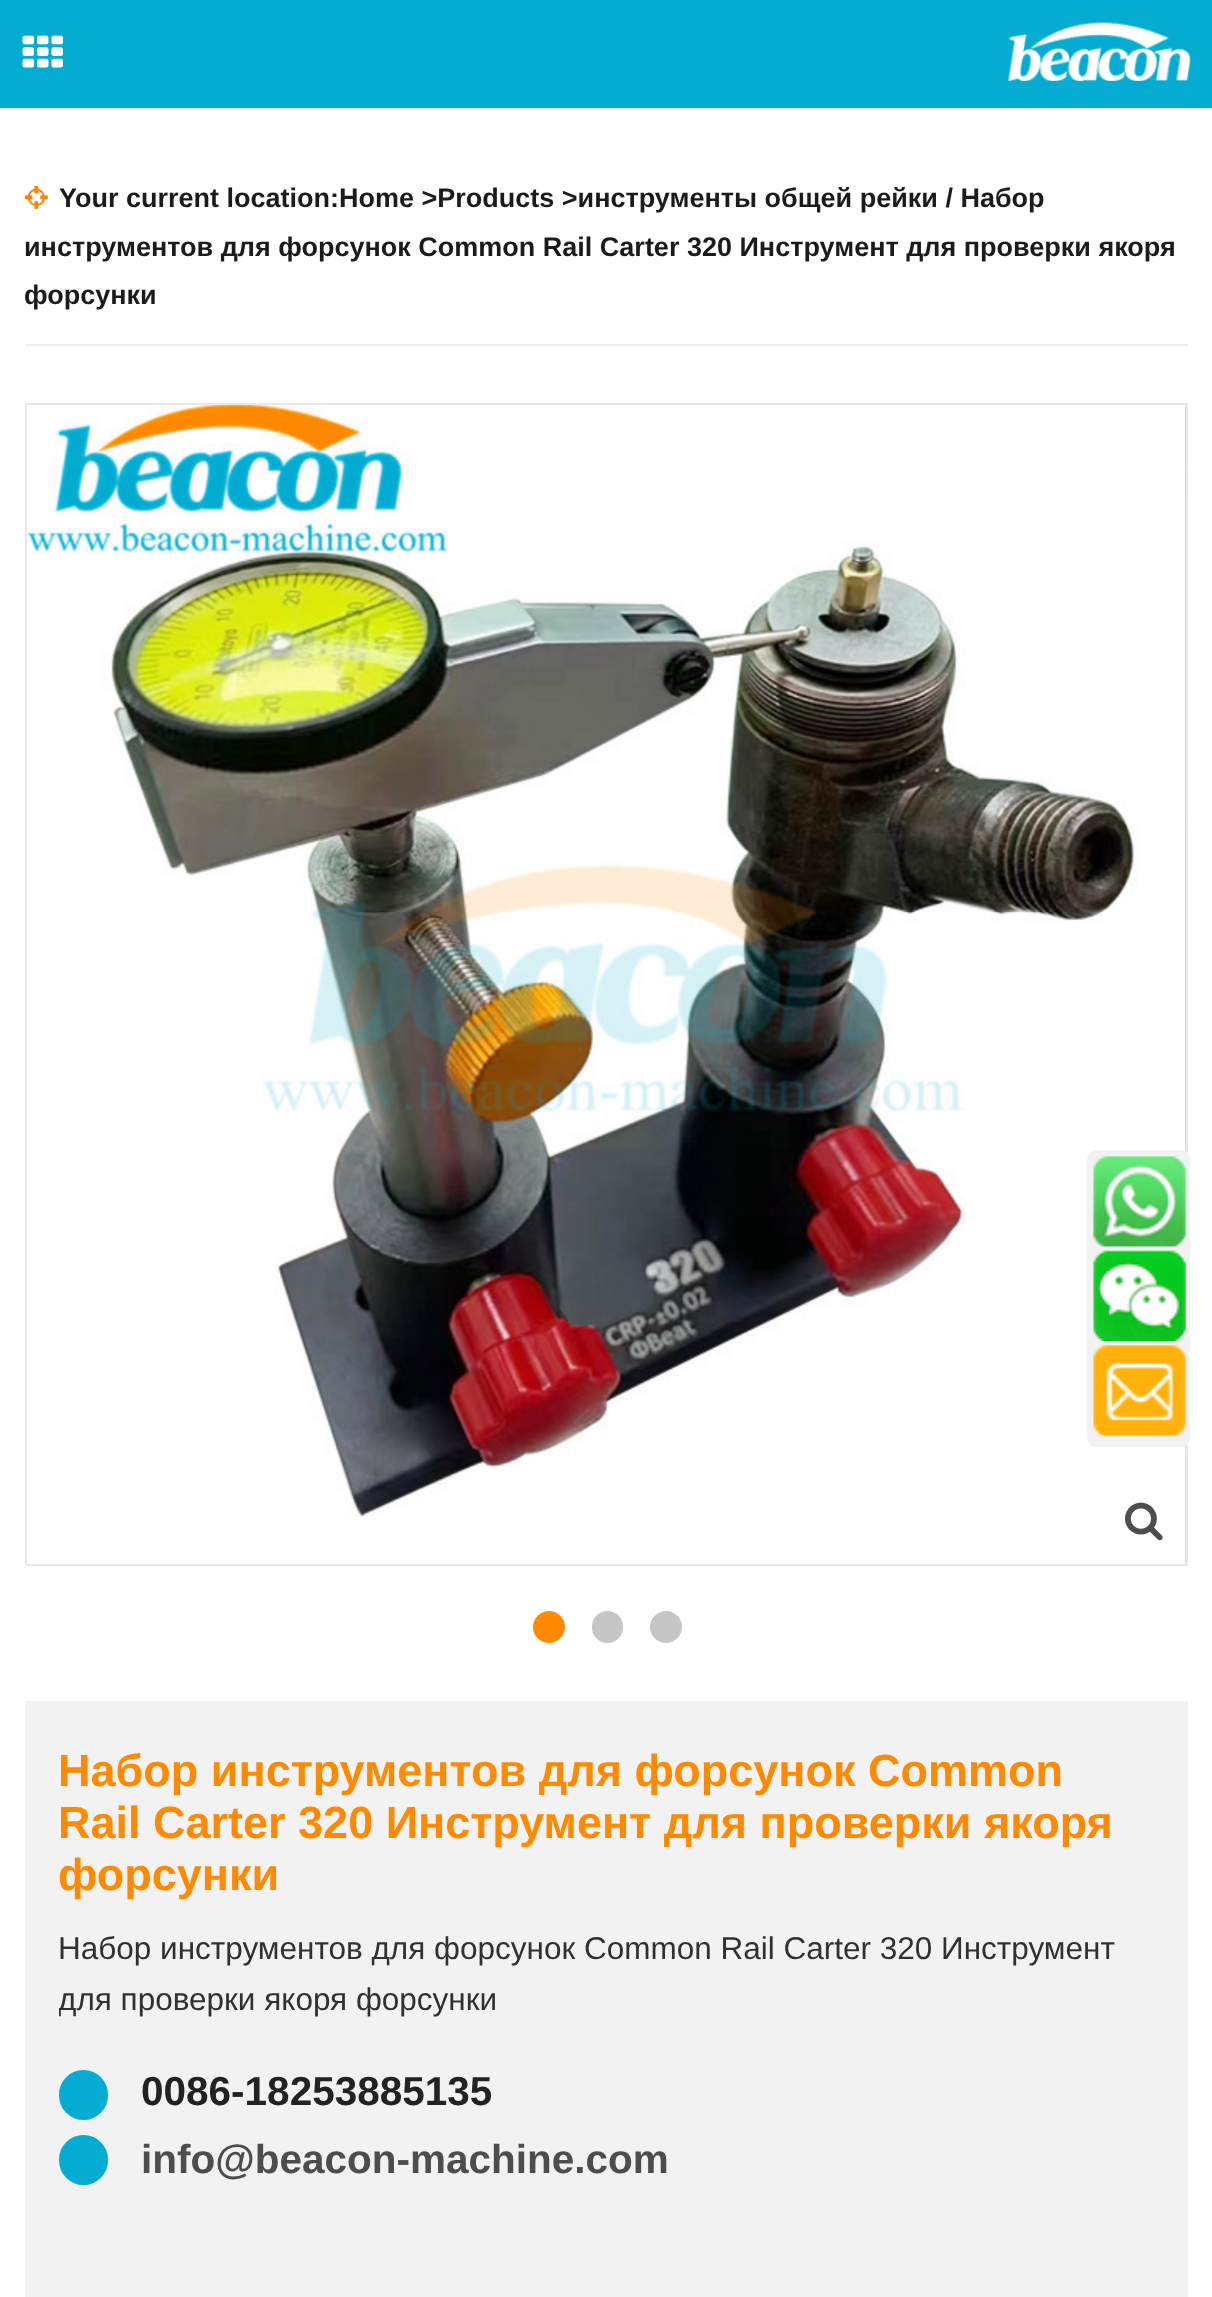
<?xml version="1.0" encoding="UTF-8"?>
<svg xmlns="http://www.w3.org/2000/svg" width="1212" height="2297">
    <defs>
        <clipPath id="clip1"><rect x="59" y="1924" width="1095" height="101"/></clipPath>
    </defs>
    <rect width="100%" height="100%" fill="#FFFFFF"/>
    <rect x="0" y="0" width="1212" height="108" fill="#03ACD0"/>
    <image x="22" y="35" width="41" height="33" href="img_01.png"/>
    <image x="1008" y="22" width="183" height="59" href="img_02.png"/>
    <rect x="25" y="344" width="1163" height="2" fill="#EDEDED"/>
    <image x="24" y="185" width="24" height="24" href="img_03.png"/>
    <text x="59" y="207" font-family="Liberation Sans" font-size="27" font-weight="700" fill="#1B1B1B">Your current location:Home &gt;Products &gt;инструменты общей рейки / Набор</text>
    <text font-family="Liberation Sans" font-size="27" font-weight="700" fill="#1B1B1B">
        <tspan x="24" y="256">инструментов для форсунок Common Rail Carter 320 Инструмент для проверки якоря</tspan>
        <tspan x="24" y="304">форсунки</tspan>
    </text>
    <rect x="26" y="404" width="1161" height="1161" fill="none" stroke="#E8E8E8" stroke-width="2"/>
    <image x="27" y="405" width="1112" height="1112" href="img_04.png"/>
    <image x="1185" y="405" width="1" height="1159" href="img_05.png"/>
    <image x="1125" y="1502" width="38" height="39" href="img_06.png"/>
    <circle cx="549" cy="1627" r="16" fill="#FF8A00"/>
    <rect x="592" y="1611" width="31" height="32" rx="15.5" fill="#C6C6C6"/>
    <circle cx="666" cy="1627" r="16" fill="#C6C6C6"/>
    <rect x="25" y="1701" width="1163" height="596" fill="#F2F2F2"/>
    <text font-family="Liberation Sans" font-size="45" font-weight="700" fill="#FF8A00">
        <tspan x="58" y="1786">Набор инструментов для форсунок Common</tspan>
        <tspan x="58" y="1838">Rail Carter 320 Инструмент для проверки якоря</tspan>
        <tspan x="58" y="1890">форсунки</tspan>
    </text>
    <text x="58" y="1959" font-family="Liberation Sans" font-size="31.5" fill="#313131">Набор инструментов для форсунок Common Rail Carter 320 Инструмент</text>
    <g clip-path="url(#clip1)">
        <text x="58" y="2010" font-family="Liberation Sans" font-size="31.5" fill="#313131">для проверки якоря форсунки</text>
    </g>
    <rect x="59" y="2070" width="49" height="50" rx="24.5" fill="#03ACD0"/>
    <text x="141" y="2105" font-family="Liberation Sans" font-size="40.5" font-weight="700" fill="#222222">0086-18253885135</text>
    <rect x="59" y="2135" width="49" height="50" rx="24.5" fill="#03ACD0"/>
    <text x="141" y="2173" font-family="Liberation Sans" font-size="40.5" font-weight="700" fill="#4D4D4D">info@beacon-machine.com</text>
    <rect x="1087" y="1150" width="103" height="297" rx="9" fill="#F2F2F2"/>
    <image x="1093" y="1156" width="94" height="92" href="img_07.png"/>
    <image x="1093" y="1250" width="93" height="91" href="img_08.png"/>
    <image x="1093" y="1345" width="94" height="92" href="img_09.png"/>
</svg>
